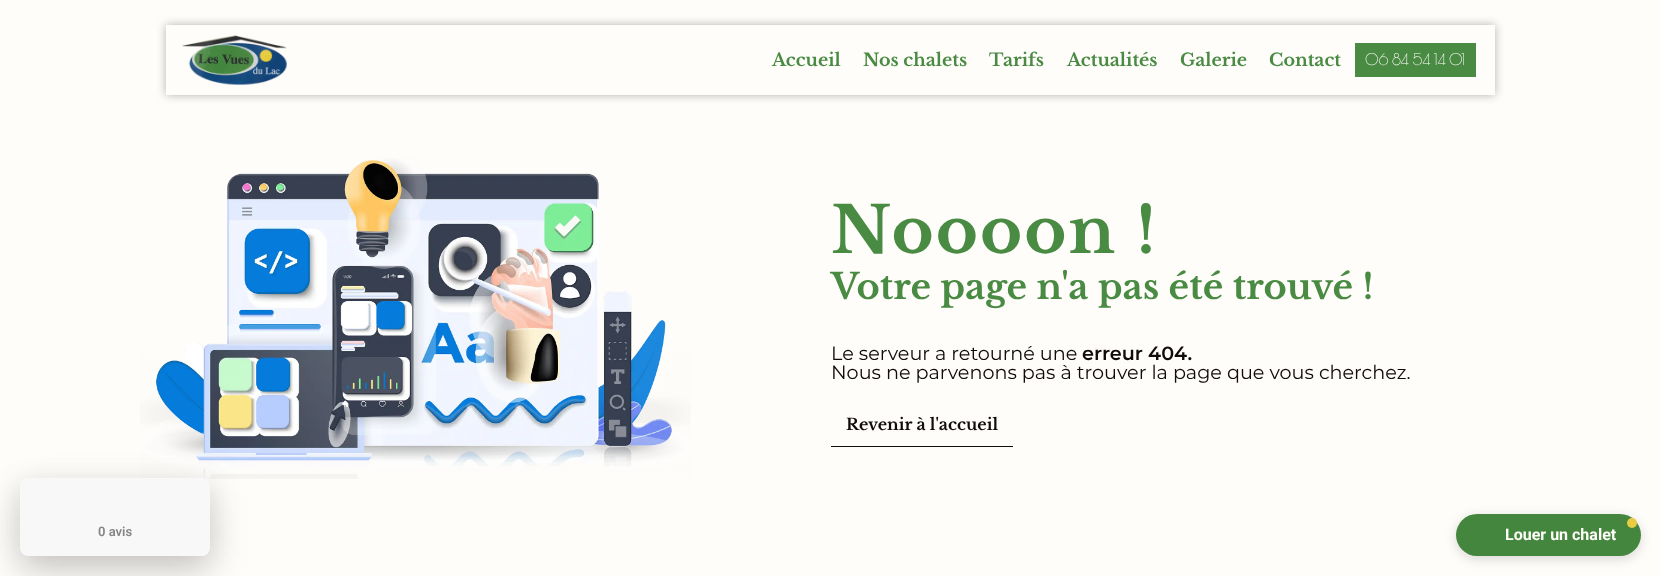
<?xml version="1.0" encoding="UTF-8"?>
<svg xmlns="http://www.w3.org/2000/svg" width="1661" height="576">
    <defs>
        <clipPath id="clip1"><path d="M 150 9 H 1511 V 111 H 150 Z M 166 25 H 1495 V 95 H 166 Z" clip-rule="evenodd"/></clipPath>
        <filter id="blur1" x="-50%" y="-200%" width="200%" height="500%"><feGaussianBlur stdDeviation="5"/></filter>
        <filter id="blur2" x="-50%" y="-200%" width="200%" height="500%"><feGaussianBlur stdDeviation="15"/></filter>
        <filter id="blur3" x="-50%" y="-200%" width="200%" height="500%"><feGaussianBlur stdDeviation="20"/></filter>
        <filter id="blur4" x="-50%" y="-200%" width="200%" height="500%"><feGaussianBlur stdDeviation="6"/></filter>
    </defs>
    <rect width="100%" height="100%" fill="#FFFDFA"/>
    <g clip-path="url(#clip1)">
        <rect x="166" y="25" width="1329" height="70" fill="#110C09" fill-opacity="0.3" filter="url(#blur1)"/>
    </g>
    <image x="182" y="35" width="105" height="50" href="img_01.png"/>
    <text x="772" y="66" font-family="Libre Baskerville" font-size="17.5" font-weight="700" fill="#4A8B44">Accueil</text>
    <text x="863" y="66" font-family="Libre Baskerville" font-size="17.5" font-weight="700" fill="#4A8B44">Nos chalets</text>
    <text x="989" y="66" font-family="Libre Baskerville" font-size="17.5" font-weight="700" fill="#4A8B44">Tarifs</text>
    <text x="1067" y="66" font-family="Libre Baskerville" font-size="17.5" font-weight="700" fill="#4A8B44">Actualités</text>
    <text x="1180" y="66" font-family="Libre Baskerville" font-size="17.5" font-weight="700" fill="#4A8B44">Galerie</text>
    <text x="1269" y="66" font-family="Libre Baskerville" font-size="17.5" font-weight="700" fill="#4A8B44">Contact</text>
    <rect x="1355" y="43" width="121" height="34" fill="#4A8B44"/>
    <text x="1365" y="65" font-family="Poiret One" font-size="15.75" fill="#FFFDFA">06 84 54 14 01</text>
    <image x="140" y="158" width="551" height="321" href="img_02.png"/>
    <text x="831" y="253" font-family="Libre Baskerville" font-size="64" font-weight="700" letter-spacing="2" fill="#4A8B44">Noooon !</text>
    <text x="831" y="299" font-family="Libre Baskerville" font-size="35.25" font-weight="700" fill="#4A8B44">Votre page n'a pas été trouvé !</text>
    <text x="831" y="360" font-family="Montserrat" font-size="19.2" fill="#110C09">Le serveur a retourné une</text>
    <text x="1082" y="360" font-family="Montserrat" font-size="19.2" font-weight="600" fill="#110C09">erreur 404.</text>
    <text x="831" y="379" font-family="Montserrat" font-size="19.2" fill="#110C09">Nous ne parvenons pas à trouver la page que vous cherchez.</text>
    <rect x="831" y="446" width="182" height="1" fill="#110C09"/>
    <text x="846" y="430" font-family="Libre Baskerville" font-size="16" font-weight="700" fill="#110C09">Revenir à l'accueil</text>
    <rect x="20" y="488" width="190" height="78" rx="8" fill="#000000" fill-opacity="0.15" filter="url(#blur2)"/>
    <rect x="20" y="493" width="190" height="78" rx="8" fill="#000000" fill-opacity="0.1" filter="url(#blur3)"/>
    <rect x="20" y="478" width="190" height="78" rx="8" fill="#F8F8F8"/>
    <text x="98" y="536" font-family="Roboto" font-size="13" font-weight="600" fill="#858585">0 avis</text>
    <rect x="1456" y="517" width="185" height="42" rx="21" fill="#000000" fill-opacity="0.15" filter="url(#blur4)"/>
    <rect x="1456" y="514" width="185" height="42" rx="21" fill="#45863F"/>
    <circle cx="1632" cy="523" r="5" fill="#EACC42"/>
    <text x="1505" y="540" font-family="Roboto" font-size="16" font-weight="700" fill="#FFFDFA">Louer un chalet</text>
</svg>
